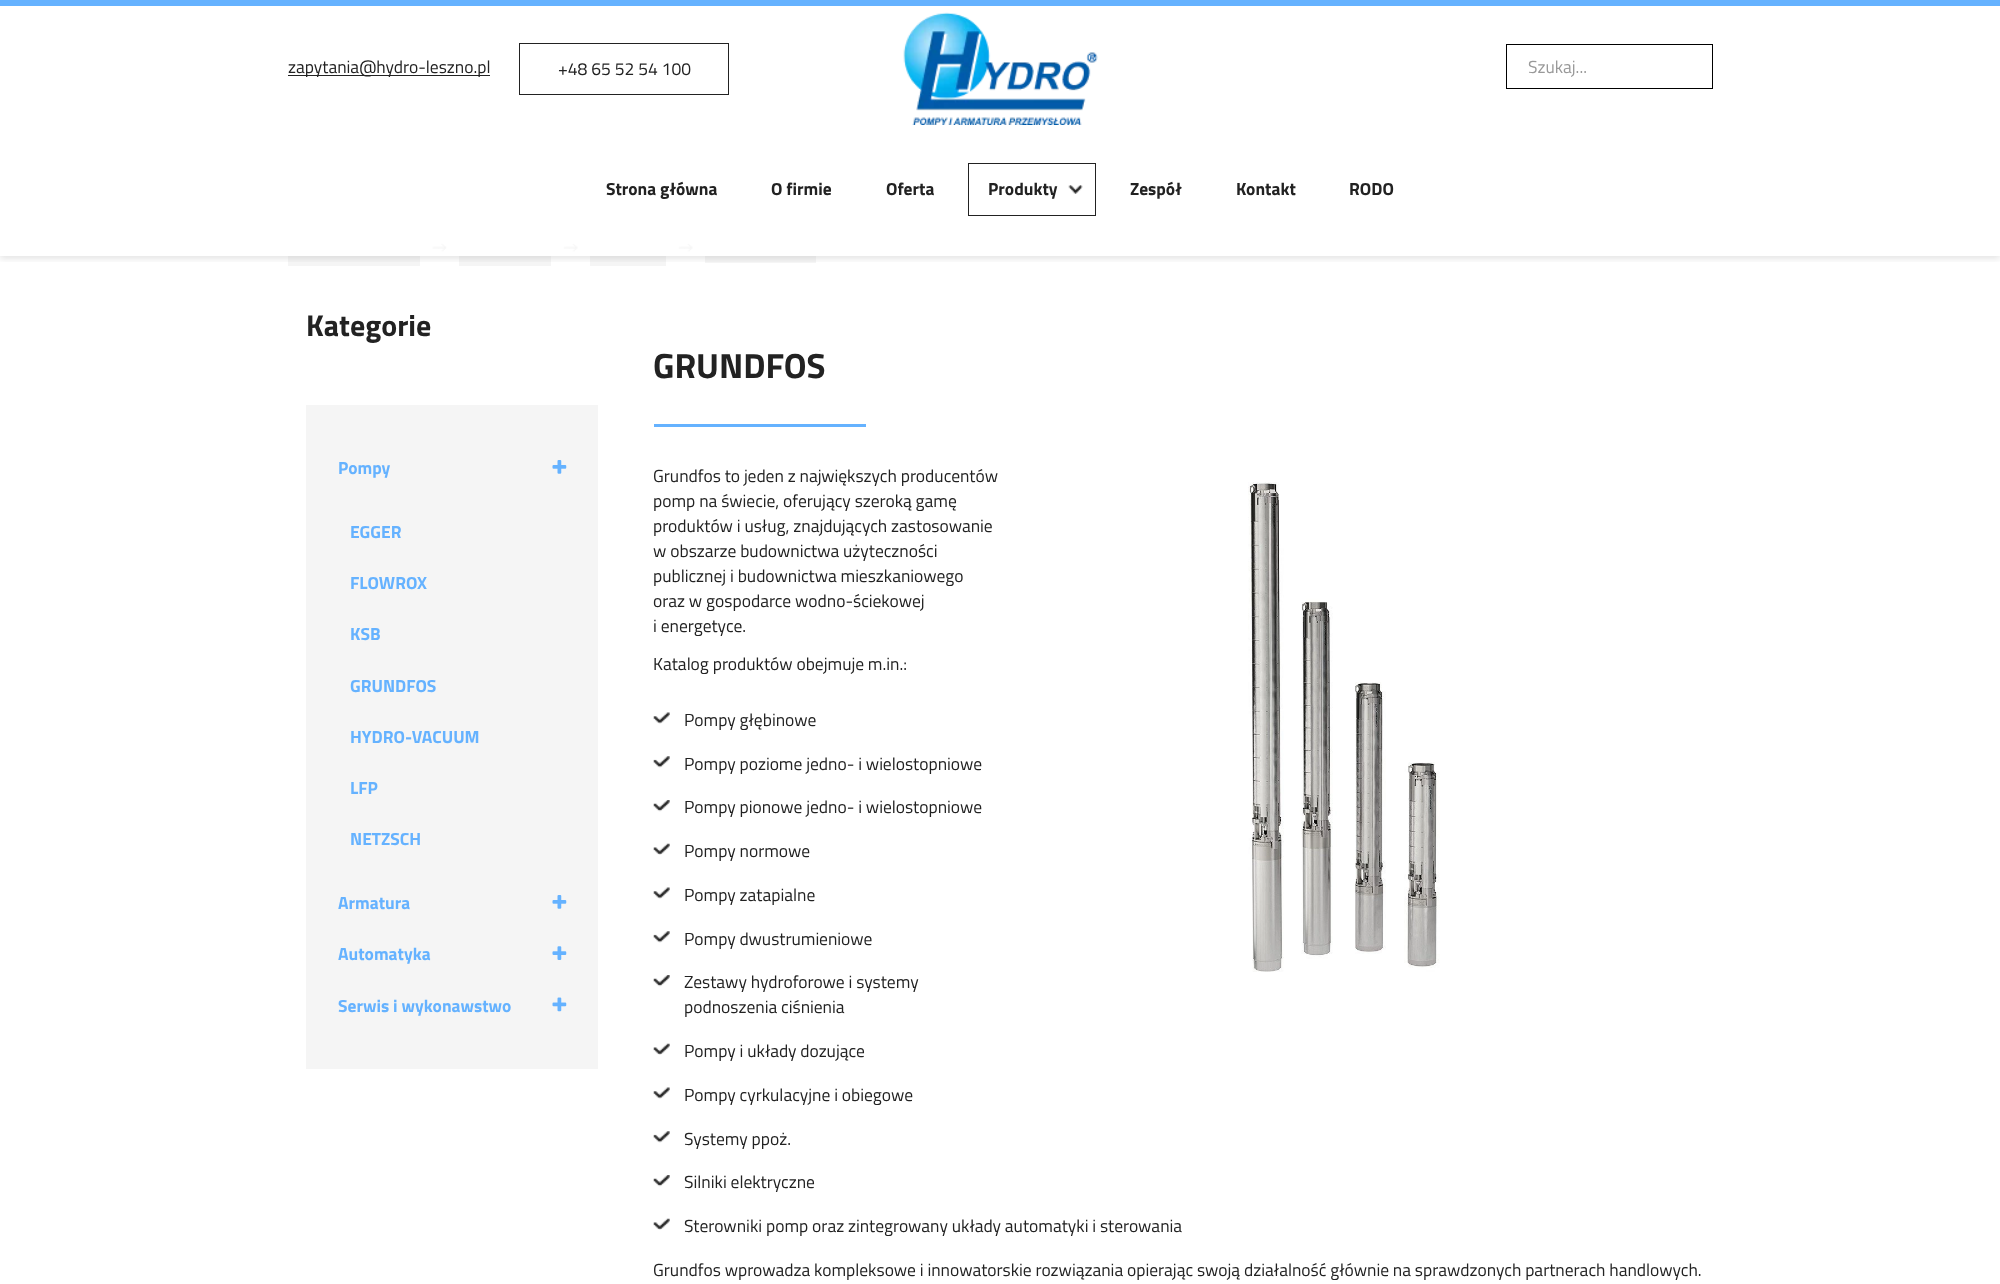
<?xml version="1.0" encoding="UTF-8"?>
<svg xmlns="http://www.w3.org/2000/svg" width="2000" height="1284">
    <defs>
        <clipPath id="clip1"><rect x="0" y="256" width="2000" height="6"/></clipPath>
        <filter id="blur1" x="-50%" y="-200%" width="200%" height="500%"><feGaussianBlur stdDeviation="3"/></filter>
    </defs>
    <rect width="100%" height="100%" fill="#FFFFFF"/>
    <rect x="0" y="0" width="2000" height="6" fill="#65B2FF"/>
    <rect x="288" y="228" width="132" height="38" fill="#F5F5F5"/>
    <image x="432" y="243" width="15" height="10" href="img_03.png"/>
    <rect x="459" y="228" width="92" height="38" fill="#F5F5F5"/>
    <image x="563" y="243" width="15" height="10" href="img_04.png"/>
    <rect x="590" y="228" width="76" height="38" fill="#F5F5F5"/>
    <image x="678" y="243" width="15" height="10" href="img_04.png"/>
    <rect x="705" y="231" width="111" height="32" fill="#F5F5F5"/>
    <g clip-path="url(#clip1)">
        <rect x="0" y="9" width="2000" height="250" fill="#000000" fill-opacity="0.1" filter="url(#blur1)"/>
    </g>
    <rect x="288" y="228" width="528" height="28" fill="#FFFFFF" fill-opacity="0.95"/>
    <rect x="288" y="75" width="202" height="1" fill="#222222"/>
    <text x="288" y="73" font-family="Cairo" font-size="17.5" fill="#222222">zapytania@hydro-leszno.pl</text>
    <rect x="519.5" y="43.5" width="209" height="51" fill="none" stroke="#222222"/>
    <text x="558" y="75" font-family="Cairo" font-size="17.5" fill="#222222">+48 65 52 54 100</text>
    <image x="903" y="12" width="195" height="113" href="img_01.png"/>
    <rect x="1506.5" y="44.5" width="206" height="44" fill="none" stroke="#000000"/>
    <text x="1528" y="73" font-family="Cairo" font-size="17.5" fill="#999999">Szukaj...</text>
    <text x="606" y="195" font-family="Cairo" font-size="17.5" font-weight="700" fill="#222222">Strona główna</text>
    <text x="771" y="195" font-family="Cairo" font-size="17.5" font-weight="700" fill="#222222">O firmie</text>
    <text x="886" y="195" font-family="Cairo" font-size="17.5" font-weight="700" fill="#222222">Oferta</text>
    <image x="1068" y="185" width="15" height="9" href="img_02.png"/>
    <rect x="968.5" y="163.5" width="127" height="52" fill="none" stroke="#222222"/>
    <text x="988" y="195" font-family="Cairo" font-size="17.5" font-weight="700" fill="#222222">Produkty</text>
    <text x="1130" y="195" font-family="Cairo" font-size="17.5" font-weight="700" fill="#222222">Zespół</text>
    <text x="1236" y="195" font-family="Cairo" font-size="17.5" font-weight="700" fill="#222222">Kontakt</text>
    <text x="1349" y="195" font-family="Cairo" font-size="17.5" font-weight="700" fill="#222222">RODO</text>
    <text x="306" y="336" font-family="Cairo" font-size="30" font-weight="700" fill="#222222">Kategorie</text>
    <rect x="306" y="405" width="292" height="664" fill="#F5F5F5"/>
    <text x="338" y="474" font-family="Cairo" font-size="17.5" font-weight="700" fill="#65B2FF">Pompy</text>
    <image x="552" y="460" width="15" height="14" href="img_05.png"/>
    <text x="350" y="538" font-family="Cairo" font-size="17.5" font-weight="700" fill="#65B2FF">EGGER</text>
    <text x="350" y="589" font-family="Cairo" font-size="17.5" font-weight="700" fill="#65B2FF">FLOWROX</text>
    <text x="350" y="640" font-family="Cairo" font-size="17.5" font-weight="700" fill="#65B2FF">KSB</text>
    <text x="350" y="692" font-family="Cairo" font-size="17.5" font-weight="700" fill="#65B2FF">GRUNDFOS</text>
    <text x="350" y="743" font-family="Cairo" font-size="17.5" font-weight="700" fill="#65B2FF">HYDRO-VACUUM</text>
    <text x="350" y="794" font-family="Cairo" font-size="17.5" font-weight="700" fill="#65B2FF">LFP</text>
    <text x="350" y="845" font-family="Cairo" font-size="17.5" font-weight="700" fill="#65B2FF">NETZSCH</text>
    <text x="338" y="909" font-family="Cairo" font-size="17.5" font-weight="700" fill="#65B2FF">Armatura</text>
    <image x="552" y="895" width="15" height="14" href="img_05.png"/>
    <text x="338" y="960" font-family="Cairo" font-size="17.5" font-weight="700" fill="#65B2FF">Automatyka</text>
    <image x="552" y="946" width="15" height="14" href="img_06.png"/>
    <text x="338" y="1012" font-family="Cairo" font-size="17.5" font-weight="700" fill="#65B2FF">Serwis i wykonawstwo</text>
    <image x="552" y="997" width="15" height="15" href="img_07.png"/>
    <text x="653" y="378" font-family="Cairo" font-size="35" font-weight="700" fill="#222222">GRUNDFOS</text>
    <rect x="654" y="424" width="212" height="3" fill="#65B2FF"/>
    <text font-family="Cairo" font-size="17.5" fill="#222222">
        <tspan x="653" y="482">Grundfos to jeden z największych producentów</tspan>
        <tspan x="653" y="507">pomp na świecie, oferujący szeroką gamę</tspan>
        <tspan x="653" y="532">produktów i usług, znajdujących zastosowanie</tspan>
        <tspan x="653" y="557">w obszarze budownictwa użyteczności</tspan>
        <tspan x="653" y="582">publicznej i budownictwa mieszkaniowego</tspan>
        <tspan x="653" y="607">oraz w gospodarce wodno-ściekowej</tspan>
        <tspan x="653" y="632">i energetyce.</tspan>
    </text>
    <text x="653" y="670" font-family="Cairo" font-size="17.5" fill="#222222">Katalog produktów obejmuje m.in.:</text>
    <image x="653" y="712" width="17" height="12" href="img_08.png"/>
    <text x="684" y="726" font-family="Cairo" font-size="17.5" fill="#222222">Pompy głębinowe</text>
    <image x="653" y="756" width="17" height="12" href="img_09.png"/>
    <text x="684" y="770" font-family="Cairo" font-size="17.5" fill="#222222">Pompy poziome jedno- i wielostopniowe</text>
    <image x="653" y="800" width="17" height="12" href="img_10.png"/>
    <text x="684" y="813" font-family="Cairo" font-size="17.5" fill="#222222">Pompy pionowe jedno- i wielostopniowe</text>
    <image x="653" y="843" width="17" height="12" href="img_11.png"/>
    <text x="684" y="857" font-family="Cairo" font-size="17.5" fill="#222222">Pompy normowe</text>
    <image x="653" y="887" width="17" height="12" href="img_08.png"/>
    <text x="684" y="901" font-family="Cairo" font-size="17.5" fill="#222222">Pompy zatapialne</text>
    <image x="653" y="931" width="17" height="12" href="img_09.png"/>
    <text x="684" y="945" font-family="Cairo" font-size="17.5" fill="#222222">Pompy dwustrumieniowe</text>
    <image x="653" y="975" width="17" height="12" href="img_10.png"/>
    <text font-family="Cairo" font-size="17.5" fill="#222222">
        <tspan x="684" y="988">Zestawy hydroforowe i systemy</tspan>
        <tspan x="684" y="1013">podnoszenia ciśnienia</tspan>
    </text>
    <image x="653" y="1043" width="17" height="12" href="img_11.png"/>
    <text x="684" y="1057" font-family="Cairo" font-size="17.5" fill="#222222">Pompy i układy dozujące</text>
    <image x="653" y="1087" width="17" height="12" href="img_08.png"/>
    <text x="684" y="1101" font-family="Cairo" font-size="17.5" fill="#222222">Pompy cyrkulacyjne i obiegowe</text>
    <image x="653" y="1131" width="17" height="12" href="img_09.png"/>
    <text x="684" y="1145" font-family="Cairo" font-size="17.5" fill="#222222">Systemy ppoż.</text>
    <image x="653" y="1175" width="17" height="12" href="img_12.png"/>
    <text x="684" y="1188" font-family="Cairo" font-size="17.5" fill="#222222">Silniki elektryczne</text>
    <image x="653" y="1218" width="17" height="12" href="img_11.png"/>
    <text x="684" y="1232" font-family="Cairo" font-size="17.5" fill="#222222">Sterowniki pomp oraz zintegrowany układy automatyki i sterowania</text>
    <text x="653" y="1276" font-family="Cairo" font-size="17.5" fill="#222222">Grundfos wprowadza kompleksowe i innowatorskie rozwiązania opierając swoją działalność głównie na sprawdzonych partnerach handlowych.</text>
    <image x="1248" y="482" width="192" height="490" href="img_13.png"/>
</svg>
